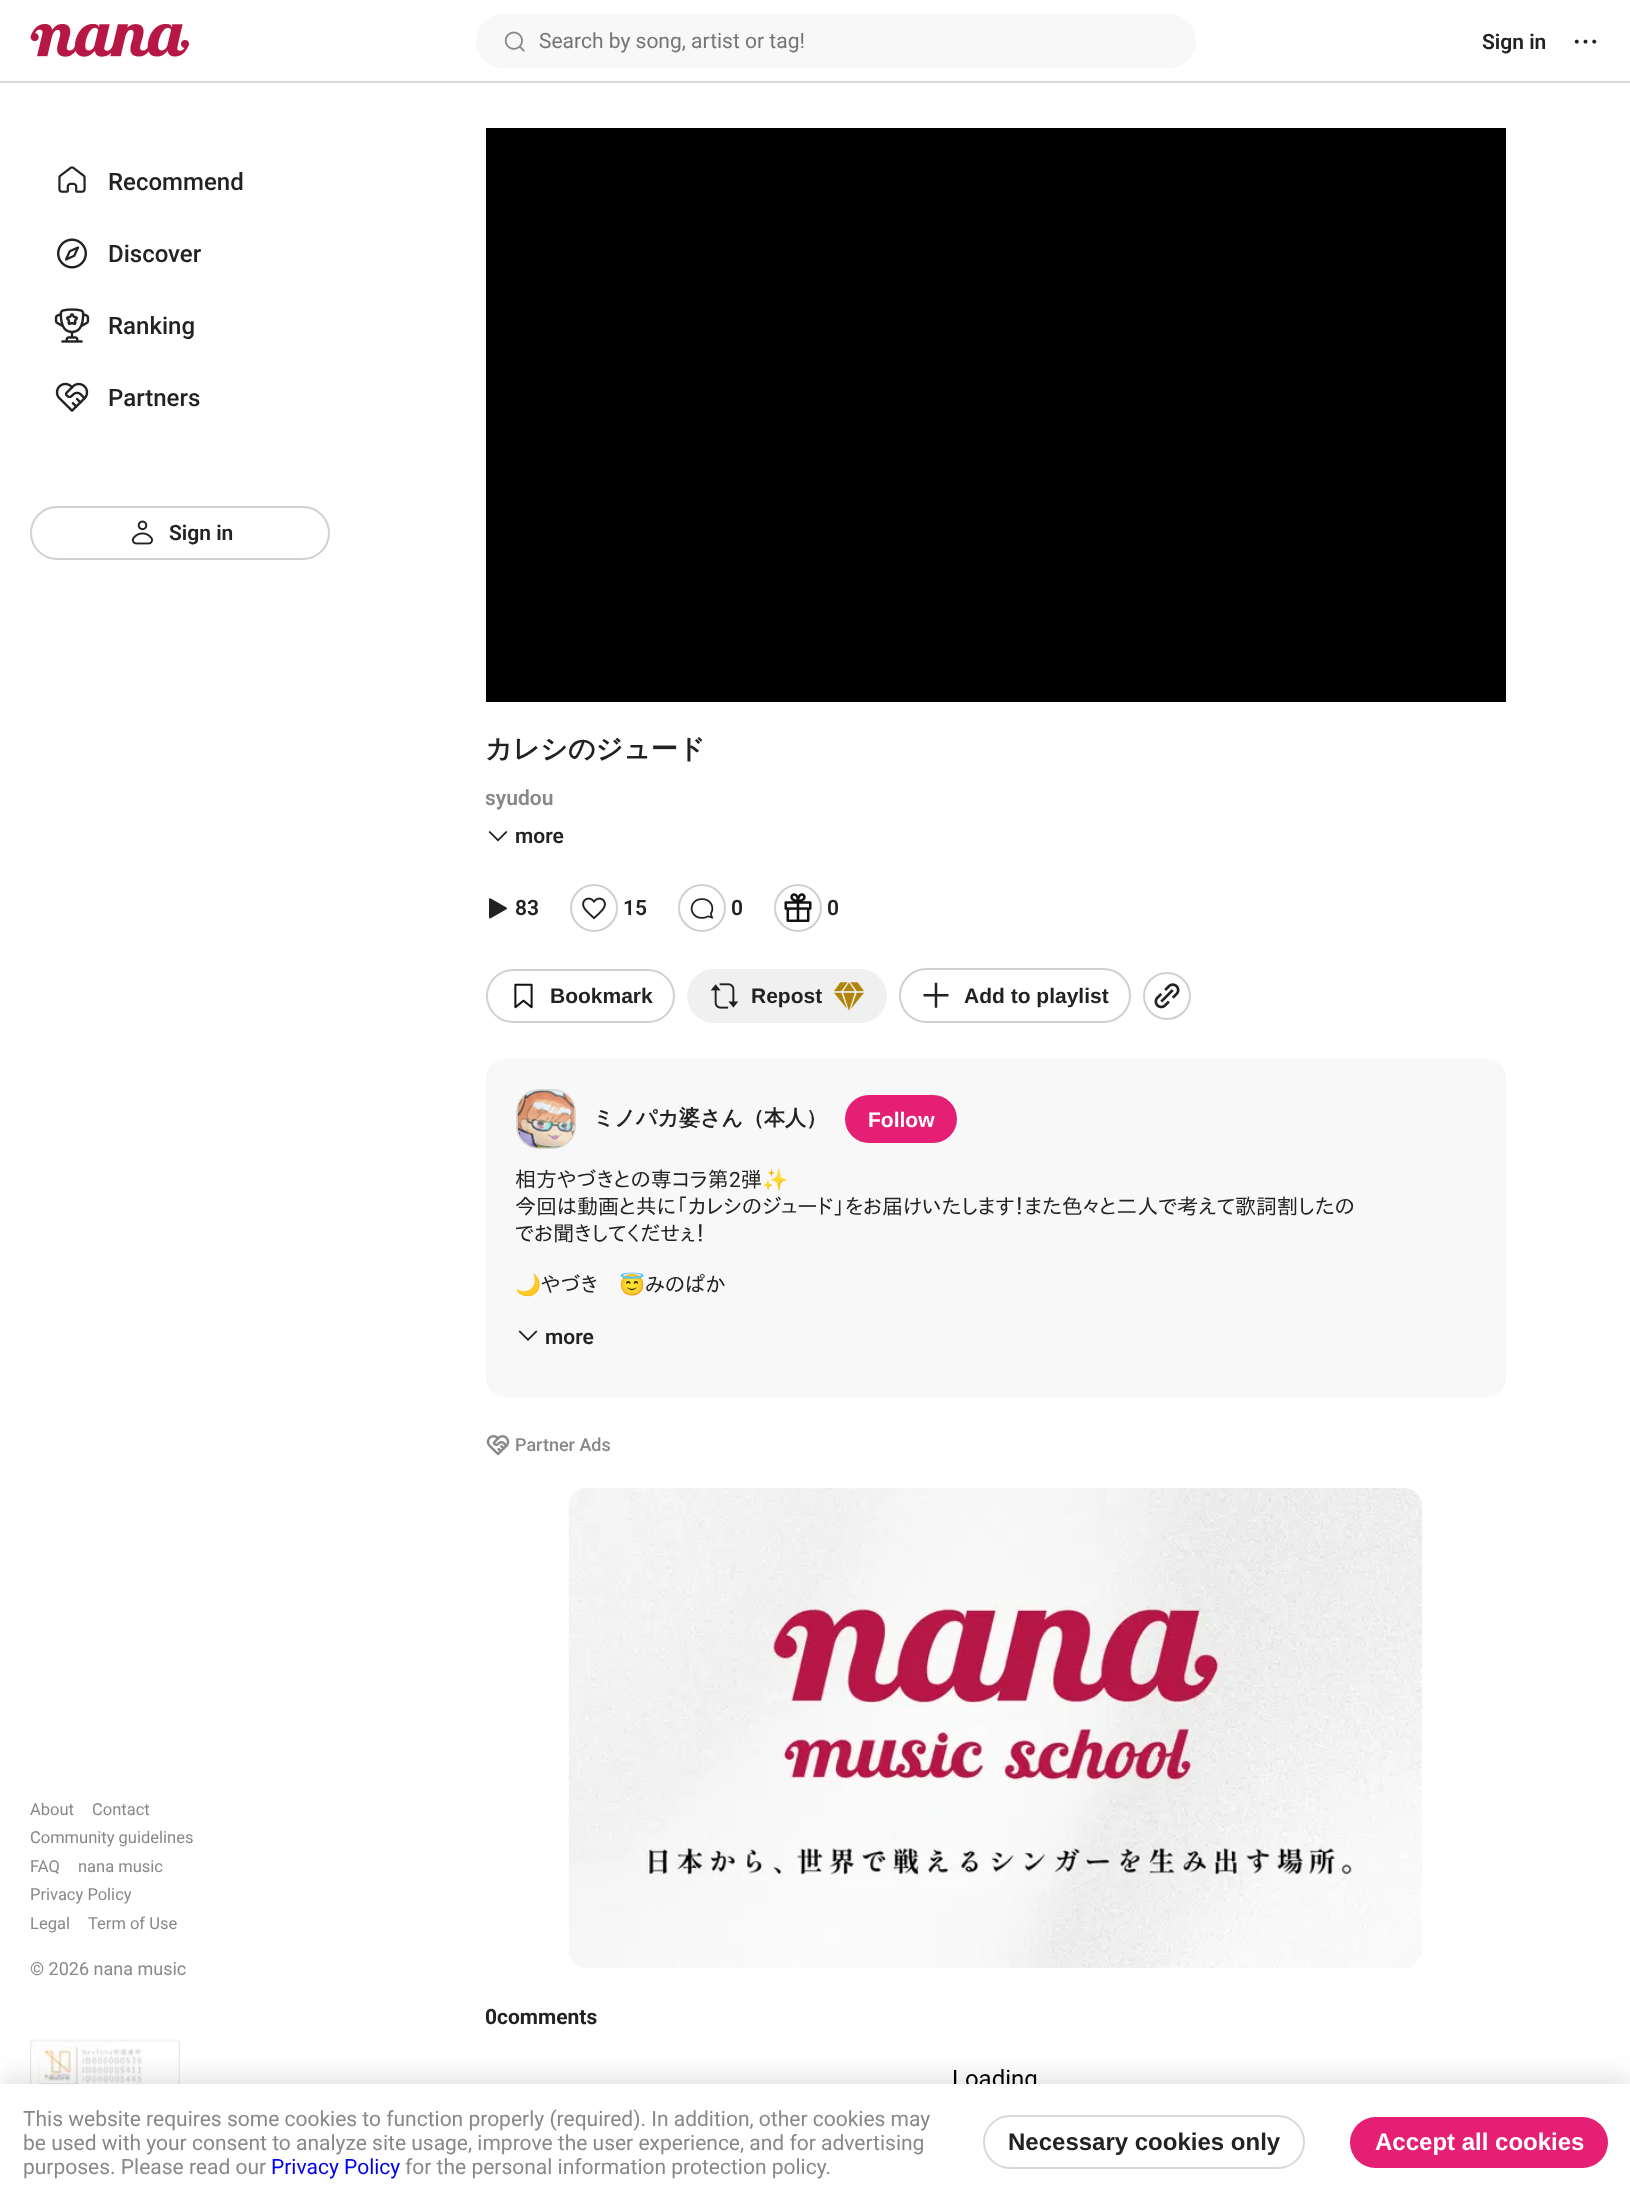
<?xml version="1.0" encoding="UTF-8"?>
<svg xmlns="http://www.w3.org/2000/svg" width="1630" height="2200">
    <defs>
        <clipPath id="clip1"><rect x="516" y="1167" width="960" height="132"/></clipPath>
        <filter id="blur1" x="-50%" y="-200%" width="200%" height="500%"><feGaussianBlur stdDeviation="11"/></filter>
    </defs>
    <rect width="100%" height="100%" fill="#FFFFFF"/>
    <rect x="0" y="81" width="1630" height="2" fill="#D8D8D8"/>
    <image x="30" y="23" width="159" height="34" href="img_01.png"/>
    <rect x="476" y="14" width="720" height="54" rx="27" fill="#F8F8F8"/>
    <image x="504" y="31" width="21" height="21" href="img_02.png"/>
    <text x="539" y="48" font-family="Roboto" font-size="21" fill="#757575">Search by song, artist or tag!</text>
    <text x="1482" y="49" font-family="Roboto" font-size="21" font-weight="600" fill="#222222">Sign in</text>
    <image x="1574" y="39" width="23" height="5" href="img_03.png"/>
    <image x="58" y="166" width="28" height="27" href="img_04.png"/>
    <text x="108" y="190" font-family="Roboto" font-size="24" font-weight="500" fill="#222222">Recommend</text>
    <image x="57" y="238" width="30" height="31" href="img_05.png"/>
    <text x="108" y="262" font-family="Roboto" font-size="24" font-weight="500" fill="#222222">Discover</text>
    <image x="54" y="308" width="36" height="35" href="img_06.png"/>
    <text x="108" y="334" font-family="Roboto" font-size="24" font-weight="500" fill="#222222">Ranking</text>
    <image x="55" y="382" width="34" height="30" href="img_07.png"/>
    <text x="108" y="406" font-family="Roboto" font-size="24" font-weight="500" fill="#222222">Partners</text>
    <rect x="31" y="507" width="298" height="52" rx="26" fill="none" stroke="#D0D0D0" stroke-width="2"/>
    <image x="131" y="520" width="22" height="25" href="img_08.png"/>
    <text x="169" y="540" font-family="Roboto" font-size="21" font-weight="600" fill="#222222">Sign in</text>
    <text x="30" y="1815" font-family="Roboto" font-size="16.5" fill="#888888">About</text>
    <text x="92" y="1815" font-family="Roboto" font-size="16.5" fill="#888888">Contact</text>
    <text font-family="Roboto" font-size="16.5" fill="#888888">
        <tspan x="30" y="1843">Community guidelines</tspan>
        <tspan x="30" y="1872">FAQ</tspan>
    </text>
    <text x="78" y="1872" font-family="Roboto" font-size="16.5" fill="#888888">nana music</text>
    <text font-family="Roboto" font-size="16.5" fill="#888888">
        <tspan x="30" y="1900">Privacy Policy</tspan>
        <tspan x="30" y="1929">Legal</tspan>
    </text>
    <text x="88" y="1929" font-family="Roboto" font-size="16.5" fill="#888888">Term of Use</text>
    <text x="30" y="1975" font-family="Roboto" font-size="18" fill="#888888">© 2026 nana music</text>
    <image x="30" y="2039" width="150" height="45" href="img_09.png"/>
    <rect x="486" y="128" width="1020" height="574" fill="#000000"/>
    <text x="485" y="758" font-family="WenQuanYi Zen Hei" font-size="27" font-weight="700" fill="#222222">カレシのジュード</text>
    <text x="485" y="805" font-family="Roboto" font-size="21" font-weight="600" fill="#888888">syudou</text>
    <path d="M 507.5 832 L 498 841.5 L 488.5 832 L 490 831 L 498 839 L 506 831 Z" fill="#222222" fill-rule="evenodd"/>
    <text x="515" y="843" font-family="Roboto" font-size="21" font-weight="600" fill="#222222">more</text>
    <image x="489" y="898" width="18" height="21" href="img_10.png"/>
    <text x="515" y="915" font-family="Roboto" font-size="21" font-weight="600" fill="#222222">83</text>
    <circle cx="594" cy="908" r="23" fill="none" stroke="#D0D0D0" stroke-width="2"/>
    <image x="582" y="897" width="24" height="23" href="img_11.png"/>
    <text x="623" y="915" font-family="Roboto" font-size="21" font-weight="600" fill="#222222">15</text>
    <circle cx="702" cy="908" r="23" fill="none" stroke="#D0D0D0" stroke-width="2"/>
    <image x="690" y="898" width="24" height="21" href="img_12.png"/>
    <text x="731" y="915" font-family="Roboto" font-size="21" font-weight="600" fill="#222222">0</text>
    <circle cx="798" cy="908" r="23" fill="none" stroke="#D0D0D0" stroke-width="2"/>
    <image x="784" y="893" width="28" height="29" href="img_13.png"/>
    <text x="827" y="915" font-family="Roboto" font-size="21" font-weight="600" fill="#222222">0</text>
    <rect x="487" y="970" width="187" height="52" rx="26" fill="none" stroke="#D0D0D0" stroke-width="2"/>
    <image x="514" y="983" width="19" height="26" href="img_14.png"/>
    <text x="550" y="1003" font-family="Liberation Sans" font-size="21" font-weight="700" fill="#222222">Bookmark</text>
    <rect x="687" y="969" width="200" height="54" rx="27" fill="#F0F0F0"/>
    <image x="710" y="983" width="29" height="26" href="img_15.png"/>
    <text x="751" y="1003" font-family="Liberation Sans" font-size="21" font-weight="700" fill="#222222">Repost</text>
    <image x="834" y="982" width="30" height="29" href="img_16.png"/>
    <rect x="900" y="969" width="230" height="53" rx="26.5" fill="none" stroke="#D0D0D0" stroke-width="2"/>
    <image x="923" y="982" width="26" height="26" href="img_17.png"/>
    <text x="964" y="1003" font-family="Liberation Sans" font-size="21" font-weight="700" fill="#222222">Add to playlist</text>
    <circle cx="1167" cy="996" r="23" fill="none" stroke="#D0D0D0" stroke-width="2"/>
    <image x="1154" y="983" width="26" height="26" href="img_18.png"/>
    <rect x="486" y="1059" width="1020" height="338" rx="18" fill="#F8F8F8"/>
    <rect x="517" y="1090" width="58" height="58" rx="22" fill="none" stroke="#D8D8D8" stroke-width="2"/>
    <image x="517" y="1090" width="58" height="58" href="img_19.png"/>
    <text x="593" y="1125" font-family="WenQuanYi Zen Hei" font-size="21" font-weight="700" fill="#222222">ミノパカ婆さん（本人）</text>
    <rect x="845" y="1095" width="112" height="48" rx="24" fill="#E41F74"/>
    <text x="868" y="1127" font-family="Liberation Sans" font-size="21" font-weight="700" fill="#FFFFFF">Follow</text>
    <text x="515" y="1187" font-family="IPAPGothic" font-size="21" fill="#222222">相方やづきとの専コラ第</text>
    <text x="729" y="1187" font-family="Roboto" font-size="21" fill="#222222">2</text>
    <text x="741" y="1187" font-family="IPAPGothic" font-size="21" fill="#222222">弾</text>
    <text x="762" y="1187" font-family="Noto Color Emoji" font-size="21" fill="#222222">✨</text>
    <text font-family="IPAPGothic" font-size="21" fill="#222222">
        <tspan x="515" y="1214">今回は動画と共に「カレシのジュード」をお届けいたします！また色々と二人で考えて歌詞割したの</tspan>
        <tspan x="515" y="1241">でお聞きしてくだせぇ！</tspan>
    </text>
    <g clip-path="url(#clip1)">
        <text x="515" y="1292" font-family="Noto Color Emoji" font-size="21" fill="#222222">🌙</text>
    </g>
    <text x="541" y="1292" font-family="IPAPGothic" font-size="21" fill="#222222">やづき</text>
    <text x="619" y="1292" font-family="Noto Color Emoji" font-size="21" fill="#222222">😇</text>
    <text x="645" y="1292" font-family="IPAPGothic" font-size="21" fill="#222222">みのぱか</text>
    <path d="M 537.5 1331.5 L 528 1341 L 518.5 1331.5 L 520 1330.5 L 528 1338.5 L 536 1330.5 Z" fill="#222222" fill-rule="evenodd"/>
    <text x="545" y="1344" font-family="Roboto" font-size="21" font-weight="600" fill="#222222">more</text>
    <image x="486" y="1435" width="24" height="21" href="img_20.png"/>
    <text x="515" y="1451" font-family="Roboto" font-size="18" font-weight="500" fill="#888888">Partner Ads</text>
    <image x="568" y="1488" width="854" height="480" href="img_21.png"/>
    <text x="485" y="2024" font-family="Roboto" font-size="21" font-weight="700" fill="#222222">0comments</text>
    <text x="952" y="2087" font-family="Roboto" font-size="24" fill="#000000">Loading</text>
    <rect x="0" y="2076" width="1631" height="117" fill="#000000" fill-opacity="0.1" filter="url(#blur1)"/>
    <rect x="0" y="2084" width="1630" height="116" fill="#FFFFFF"/>
    <text font-family="Roboto" font-size="21" fill="#888888">
        <tspan x="23" y="2126">This website requires some cookies to function properly (required). In addition, other cookies may</tspan>
        <tspan x="23" y="2150">be used with your consent to analyze site usage, improve the user experience, and for advertising</tspan>
        <tspan x="23" y="2174">purposes. Please read our</tspan>
    </text>
    <text x="271" y="2174" font-family="Roboto" font-size="21" fill="#0000EE">Privacy Policy</text>
    <text x="405" y="2174" font-family="Roboto" font-size="21" fill="#888888">for the personal information protection policy.</text>
    <rect x="984" y="2116" width="320" height="52" rx="26" fill="none" stroke="#D8D8D8" stroke-width="2"/>
    <text x="1008" y="2150" font-family="Liberation Sans" font-size="24" font-weight="700" fill="#222222">Necessary cookies only</text>
    <rect x="1350" y="2117" width="258" height="51" rx="25.5" fill="#E41F74"/>
    <text x="1375" y="2150" font-family="Liberation Sans" font-size="24" font-weight="700" fill="#FFFFFF">Accept all cookies</text>
</svg>
